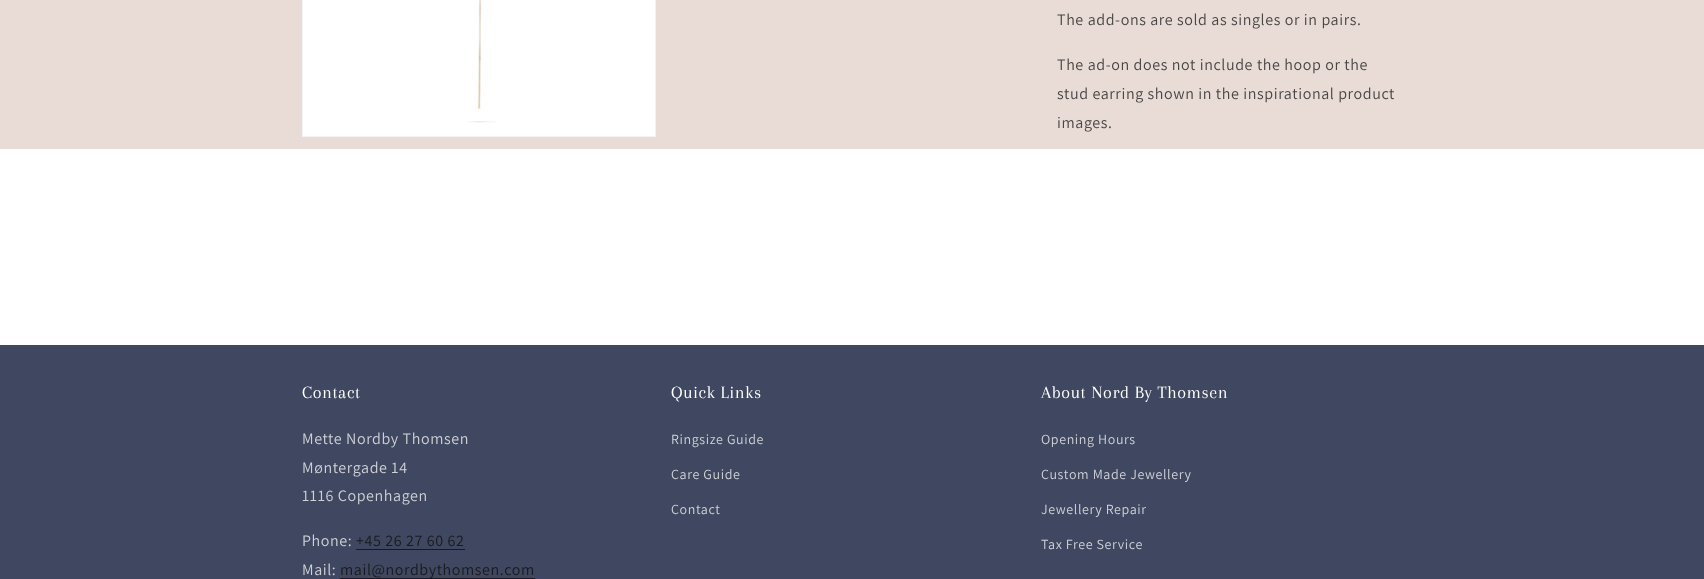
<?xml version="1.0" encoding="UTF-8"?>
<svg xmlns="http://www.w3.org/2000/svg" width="1704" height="579">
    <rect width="100%" height="100%" fill="#FFFFFF"/>
    <rect x="0" y="0" width="1704" height="149" fill="#E9DCD6"/>
    <rect x="302.5" y="-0.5" width="353" height="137" fill="#FFFFFF" stroke="#F3F3F3"/>
    <image x="467" y="0" width="30" height="123" href="img_01.png"/>
    <text x="1057" y="25" font-family="Assistant" font-size="16" letter-spacing="0.6" fill="#484543">The add-ons are sold as singles or in pairs.</text>
    <text font-family="Assistant" font-size="16" letter-spacing="0.6" fill="#484543">
        <tspan x="1057" y="70">The ad-on does not include the hoop or the</tspan>
        <tspan x="1057" y="99">stud earring shown in the inspirational product</tspan>
        <tspan x="1057" y="128">images.</tspan>
    </text>
    <rect x="0" y="345" width="1704" height="234" fill="#3F4860"/>
    <text x="302" y="398" font-family="Arapey" font-size="18" letter-spacing="0.6" fill="#FFFFFF">Contact</text>
    <text font-family="Assistant" font-size="16" letter-spacing="0.6" fill="#CFD1D7">
        <tspan x="302" y="444">Mette Nordby Thomsen</tspan>
        <tspan x="302" y="473">Møntergade 14</tspan>
        <tspan x="302" y="501">1116 Copenhagen</tspan>
    </text>
    <text x="302" y="546" font-family="Assistant" font-size="16" letter-spacing="0.6" fill="#CFD1D7">Phone:</text>
    <text x="356" y="546" font-family="Assistant" font-size="16" letter-spacing="0.6" fill="#191A1E">+45 26 27 60 62</text>
    <rect x="356" y="549" width="109" height="1" fill="#191A1E"/>
    <text x="302" y="575" font-family="Assistant" font-size="16" letter-spacing="0.6" fill="#CFD1D7">Mail:</text>
    <rect x="340" y="578" width="195" height="1" fill="#191A1E"/>
    <text x="340" y="575" font-family="Assistant" font-size="16" letter-spacing="0.6" fill="#191A1E">mail@nordbythomsen.com</text>
    <text x="671" y="398" font-family="Arapey" font-size="18" letter-spacing="0.6" fill="#FFFFFF">Quick Links</text>
    <text x="671" y="444" font-family="Assistant" font-size="14" letter-spacing="0.6" fill="#CFD1D7">Ringsize Guide</text>
    <text x="671" y="479" font-family="Assistant" font-size="14" letter-spacing="0.6" fill="#CFD1D7">Care Guide</text>
    <text x="671" y="514" font-family="Assistant" font-size="14" letter-spacing="0.6" fill="#CFD1D7">Contact</text>
    <text x="1041" y="398" font-family="Arapey" font-size="18" letter-spacing="0.6" fill="#FFFFFF">About Nord By Thomsen</text>
    <text x="1041" y="444" font-family="Assistant" font-size="14" letter-spacing="0.6" fill="#CFD1D7">Opening Hours</text>
    <text x="1041" y="479" font-family="Assistant" font-size="14" letter-spacing="0.6" fill="#CFD1D7">Custom Made Jewellery</text>
    <text x="1041" y="514" font-family="Assistant" font-size="14" letter-spacing="0.6" fill="#CFD1D7">Jewellery Repair</text>
    <text x="1041" y="549" font-family="Assistant" font-size="14" letter-spacing="0.6" fill="#CFD1D7">Tax Free Service</text>
</svg>
